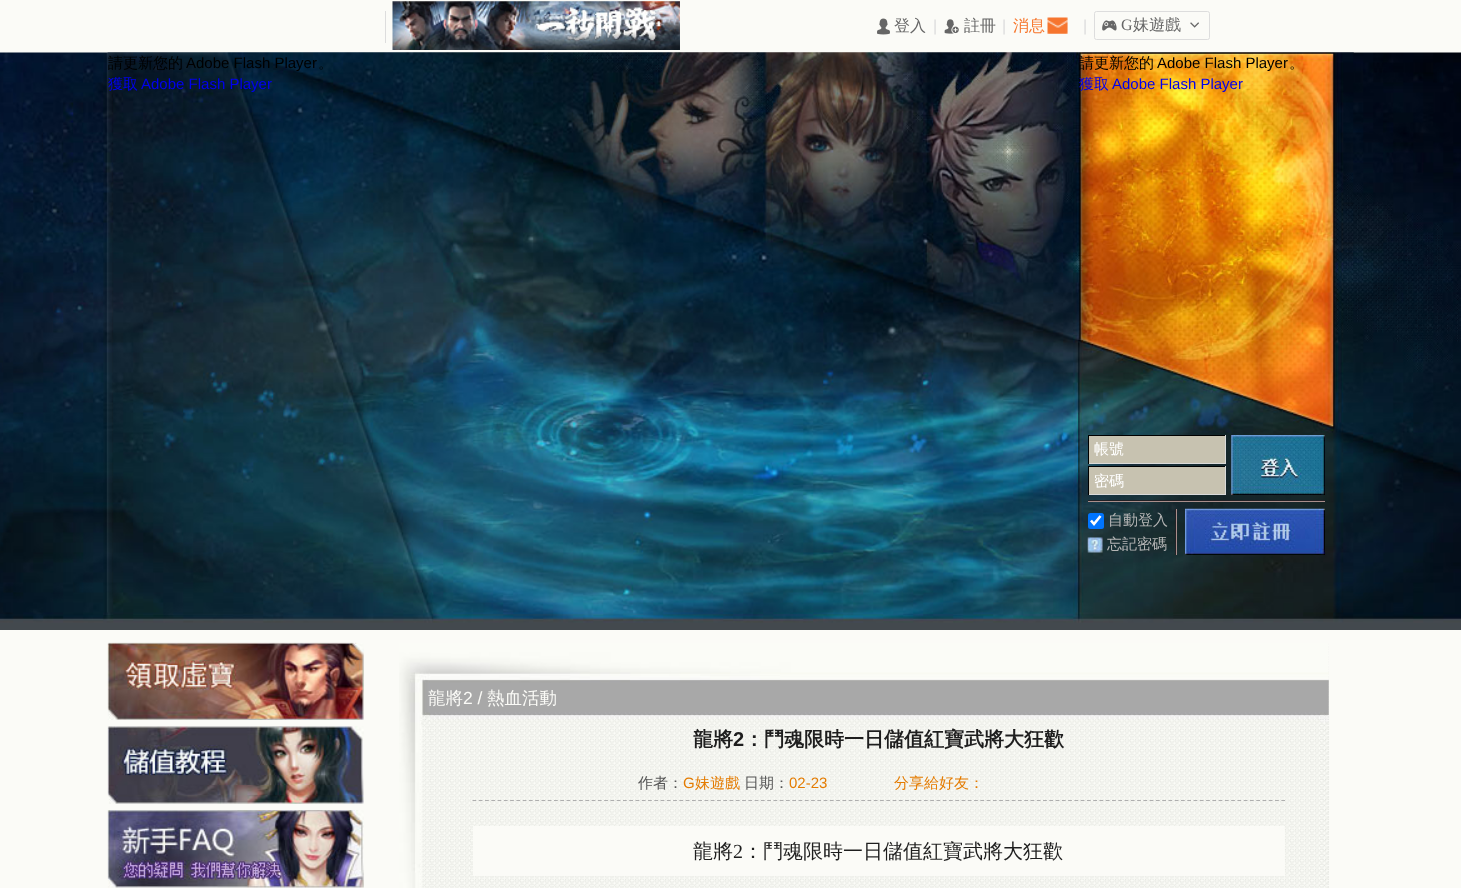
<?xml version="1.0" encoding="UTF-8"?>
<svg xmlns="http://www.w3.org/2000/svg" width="1461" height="888">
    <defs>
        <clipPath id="clip1"><rect x="108" y="53" width="971" height="577"/></clipPath>
    </defs>
    <rect width="100%" height="100%" fill="#FBFBF7"/>
    <rect x="385" y="11" width="1" height="32" fill="#DDDDDD"/>
    <image x="392" y="1" width="288" height="49" href="img_01.png"/>
    <image x="877" y="18" width="13" height="17" href="img_02.png"/>
    <text x="894" y="31" font-family="WenQuanYi Zen Hei" font-size="16" font-weight="500" fill="#666666">登入</text>
    <text x="933" y="31" font-family="Liberation Sans" font-size="16" fill="#DDDDDD">|</text>
    <image x="944" y="19" width="15" height="15" href="img_03.png"/>
    <text x="964" y="31" font-family="WenQuanYi Zen Hei" font-size="16" font-weight="500" fill="#666666">註冊</text>
    <text x="1002" y="31" font-family="Liberation Sans" font-size="16" fill="#DDDDDD">|</text>
    <text x="1013" y="31" font-family="WenQuanYi Zen Hei" font-size="16" font-weight="500" fill="#F7762C">消息</text>
    <image x="1047" y="17" width="21" height="17" href="img_04.png"/>
    <text x="1083" y="31" font-family="Liberation Sans" font-size="16" fill="#DDDDDD">|</text>
    <rect x="1094.5" y="11.5" width="115" height="28" rx="2" fill="none" stroke="#DDDDDD"/>
    <image x="1102" y="20" width="15" height="11" href="img_05.png"/>
    <text x="1121" y="30" font-family="Liberation Serif" font-size="16" fill="#666666">G</text>
    <text x="1133" y="30" font-family="WenQuanYi Zen Hei" font-size="16" font-weight="500" fill="#666666">妹遊戲</text>
    <image x="1190" y="22" width="9" height="6" href="img_06.png"/>
    <rect x="0" y="623" width="1461" height="7" fill="#43494E"/>
    <image x="0" y="52" width="1461" height="571" href="img_07.png"/>
    <image x="107" y="52" width="1247" height="1" href="img_08.png"/>
    <g clip-path="url(#clip1)">
        <text x="108" y="68" font-family="WenQuanYi Zen Hei" font-size="15" font-weight="500" fill="#000000">請更新您的</text>
    </g>
    <text x="186" y="68" font-family="Liberation Sans" font-size="15" fill="#000000">Adobe Flash Player</text>
    <text x="318" y="68" font-family="WenQuanYi Zen Hei" font-size="15" font-weight="500" fill="#000000">。</text>
    <text x="108" y="89" font-family="WenQuanYi Zen Hei" font-size="15" font-weight="500" fill="#0000EE">獲取</text>
    <text x="141" y="89" font-family="Liberation Sans" font-size="15" fill="#0000EE">Adobe Flash Player</text>
    <text x="1079" y="68" font-family="WenQuanYi Zen Hei" font-size="15" font-weight="500" fill="#000000">請更新您的</text>
    <text x="1157" y="68" font-family="Liberation Sans" font-size="15" fill="#000000">Adobe Flash Player</text>
    <text x="1289" y="68" font-family="WenQuanYi Zen Hei" font-size="15" font-weight="500" fill="#000000">。</text>
    <text x="1079" y="89" font-family="WenQuanYi Zen Hei" font-size="15" font-weight="500" fill="#0000EE">獲取</text>
    <text x="1112" y="89" font-family="Liberation Sans" font-size="15" fill="#0000EE">Adobe Flash Player</text>
    <rect x="1088" y="500" width="237" height="1" fill="#212025"/>
    <rect x="1089" y="436" width="136" height="27" fill="#C7C2B0"/>
    <rect x="1088" y="435" width="138" height="1" fill="#000000"/>
    <rect x="1225" y="435" width="1" height="29" fill="#DADADA"/>
    <rect x="1088" y="463" width="138" height="1" fill="#DADADA"/>
    <rect x="1088" y="435" width="1" height="29" fill="#000000"/>
    <text x="1094" y="454" font-family="WenQuanYi Zen Hei" font-size="15" font-weight="500" fill="#FFFFFF">帳號</text>
    <rect x="1089" y="467" width="136" height="27" fill="#C7C2B0"/>
    <rect x="1088" y="466" width="138" height="1" fill="#000000"/>
    <rect x="1225" y="466" width="1" height="29" fill="#DADADA"/>
    <rect x="1088" y="494" width="138" height="1" fill="#DADADA"/>
    <rect x="1088" y="466" width="1" height="29" fill="#000000"/>
    <text x="1094" y="486" font-family="WenQuanYi Zen Hei" font-size="15" font-weight="500" fill="#FFFFFF">密碼</text>
    <image x="1231" y="435" width="94" height="60" href="img_09.png"/>
    <rect x="1088" y="501" width="237" height="1" fill="#A98E8B"/>
    <rect x="1175" y="509" width="1" height="46" fill="#212025"/>
    <rect x="1088" y="513" width="16" height="16" rx="2.5" fill="#0075FF"/>
    <path d="M 1091 520.5 L 1094 524 L 1100.5 516" fill="none" stroke="#FFFFFF" stroke-width="2.6"/>
    <text x="1108" y="525" font-family="WenQuanYi Zen Hei" font-size="15" font-weight="500" fill="#B6B6B6">自動登入</text>
    <image x="1087" y="537" width="16" height="16" href="img_10.png"/>
    <text x="1107" y="549" font-family="WenQuanYi Zen Hei" font-size="15" font-weight="500" fill="#B6B6B6">忘記密碼</text>
    <rect x="1176" y="509" width="1" height="46" fill="#A98E8B"/>
    <image x="1185" y="508" width="140" height="47" href="img_11.png"/>
    <image x="107" y="642" width="257" height="78" href="img_12.png"/>
    <image x="107" y="726" width="257" height="78" href="img_13.png"/>
    <image x="107" y="810" width="257" height="78" href="img_14.png"/>
    <image x="1328" y="643" width="1" height="245" href="img_15.png"/>
    <image x="399" y="643" width="930" height="245" href="img_16.png"/>
    <text x="428" y="704" font-family="WenQuanYi Zen Hei" font-size="17.5" font-weight="500" fill="#FBFBF7">龍將</text>
    <text x="463" y="704" font-family="Liberation Sans" font-size="17.5" fill="#FBFBF7">2 /</text>
    <text x="487" y="704" font-family="WenQuanYi Zen Hei" font-size="17.5" font-weight="500" fill="#FBFBF7">熱血活動</text>
    <text x="693" y="746" font-family="WenQuanYi Zen Hei" font-size="20" font-weight="700" fill="#1E1E1E">龍將</text>
    <text x="733" y="746" font-family="Liberation Sans" font-size="20" font-weight="700" fill="#1E1E1E">2</text>
    <text x="744" y="746" font-family="WenQuanYi Zen Hei" font-size="20" font-weight="700" fill="#1E1E1E">：鬥魂限時一日儲值紅寶武將大狂歡</text>
    <path d="M 472.5 800.5 H 1285" fill="none" stroke="#AEAEAE" stroke-width="1.2" stroke-dasharray="3.75 2.52"/>
    <text x="638" y="788" font-family="WenQuanYi Zen Hei" font-size="15" font-weight="500" fill="#565656">作者：</text>
    <text x="683" y="788" font-family="Liberation Sans" font-size="15" fill="#E47B00">G</text>
    <text x="695" y="788" font-family="WenQuanYi Zen Hei" font-size="15" font-weight="500" fill="#E47B00">妹遊戲</text>
    <text x="744" y="788" font-family="WenQuanYi Zen Hei" font-size="15" font-weight="500" fill="#565656">日期：</text>
    <text x="789" y="788" font-family="Liberation Sans" font-size="15" fill="#E47B00">02-23</text>
    <text x="894" y="788" font-family="WenQuanYi Zen Hei" font-size="15" font-weight="500" fill="#E47B00">分享給好友：</text>
    <rect x="473" y="826" width="812" height="50" fill="#FBFBF7"/>
    <text x="693" y="858" font-family="WenQuanYi Zen Hei" font-size="20" font-weight="500" fill="#1E1E1E">龍將</text>
    <text x="733" y="858" font-family="Liberation Serif" font-size="20" fill="#1E1E1E">2</text>
    <text x="743" y="858" font-family="WenQuanYi Zen Hei" font-size="20" font-weight="500" fill="#1E1E1E">：鬥魂限時一日儲值紅寶武將大狂歡</text>
</svg>
